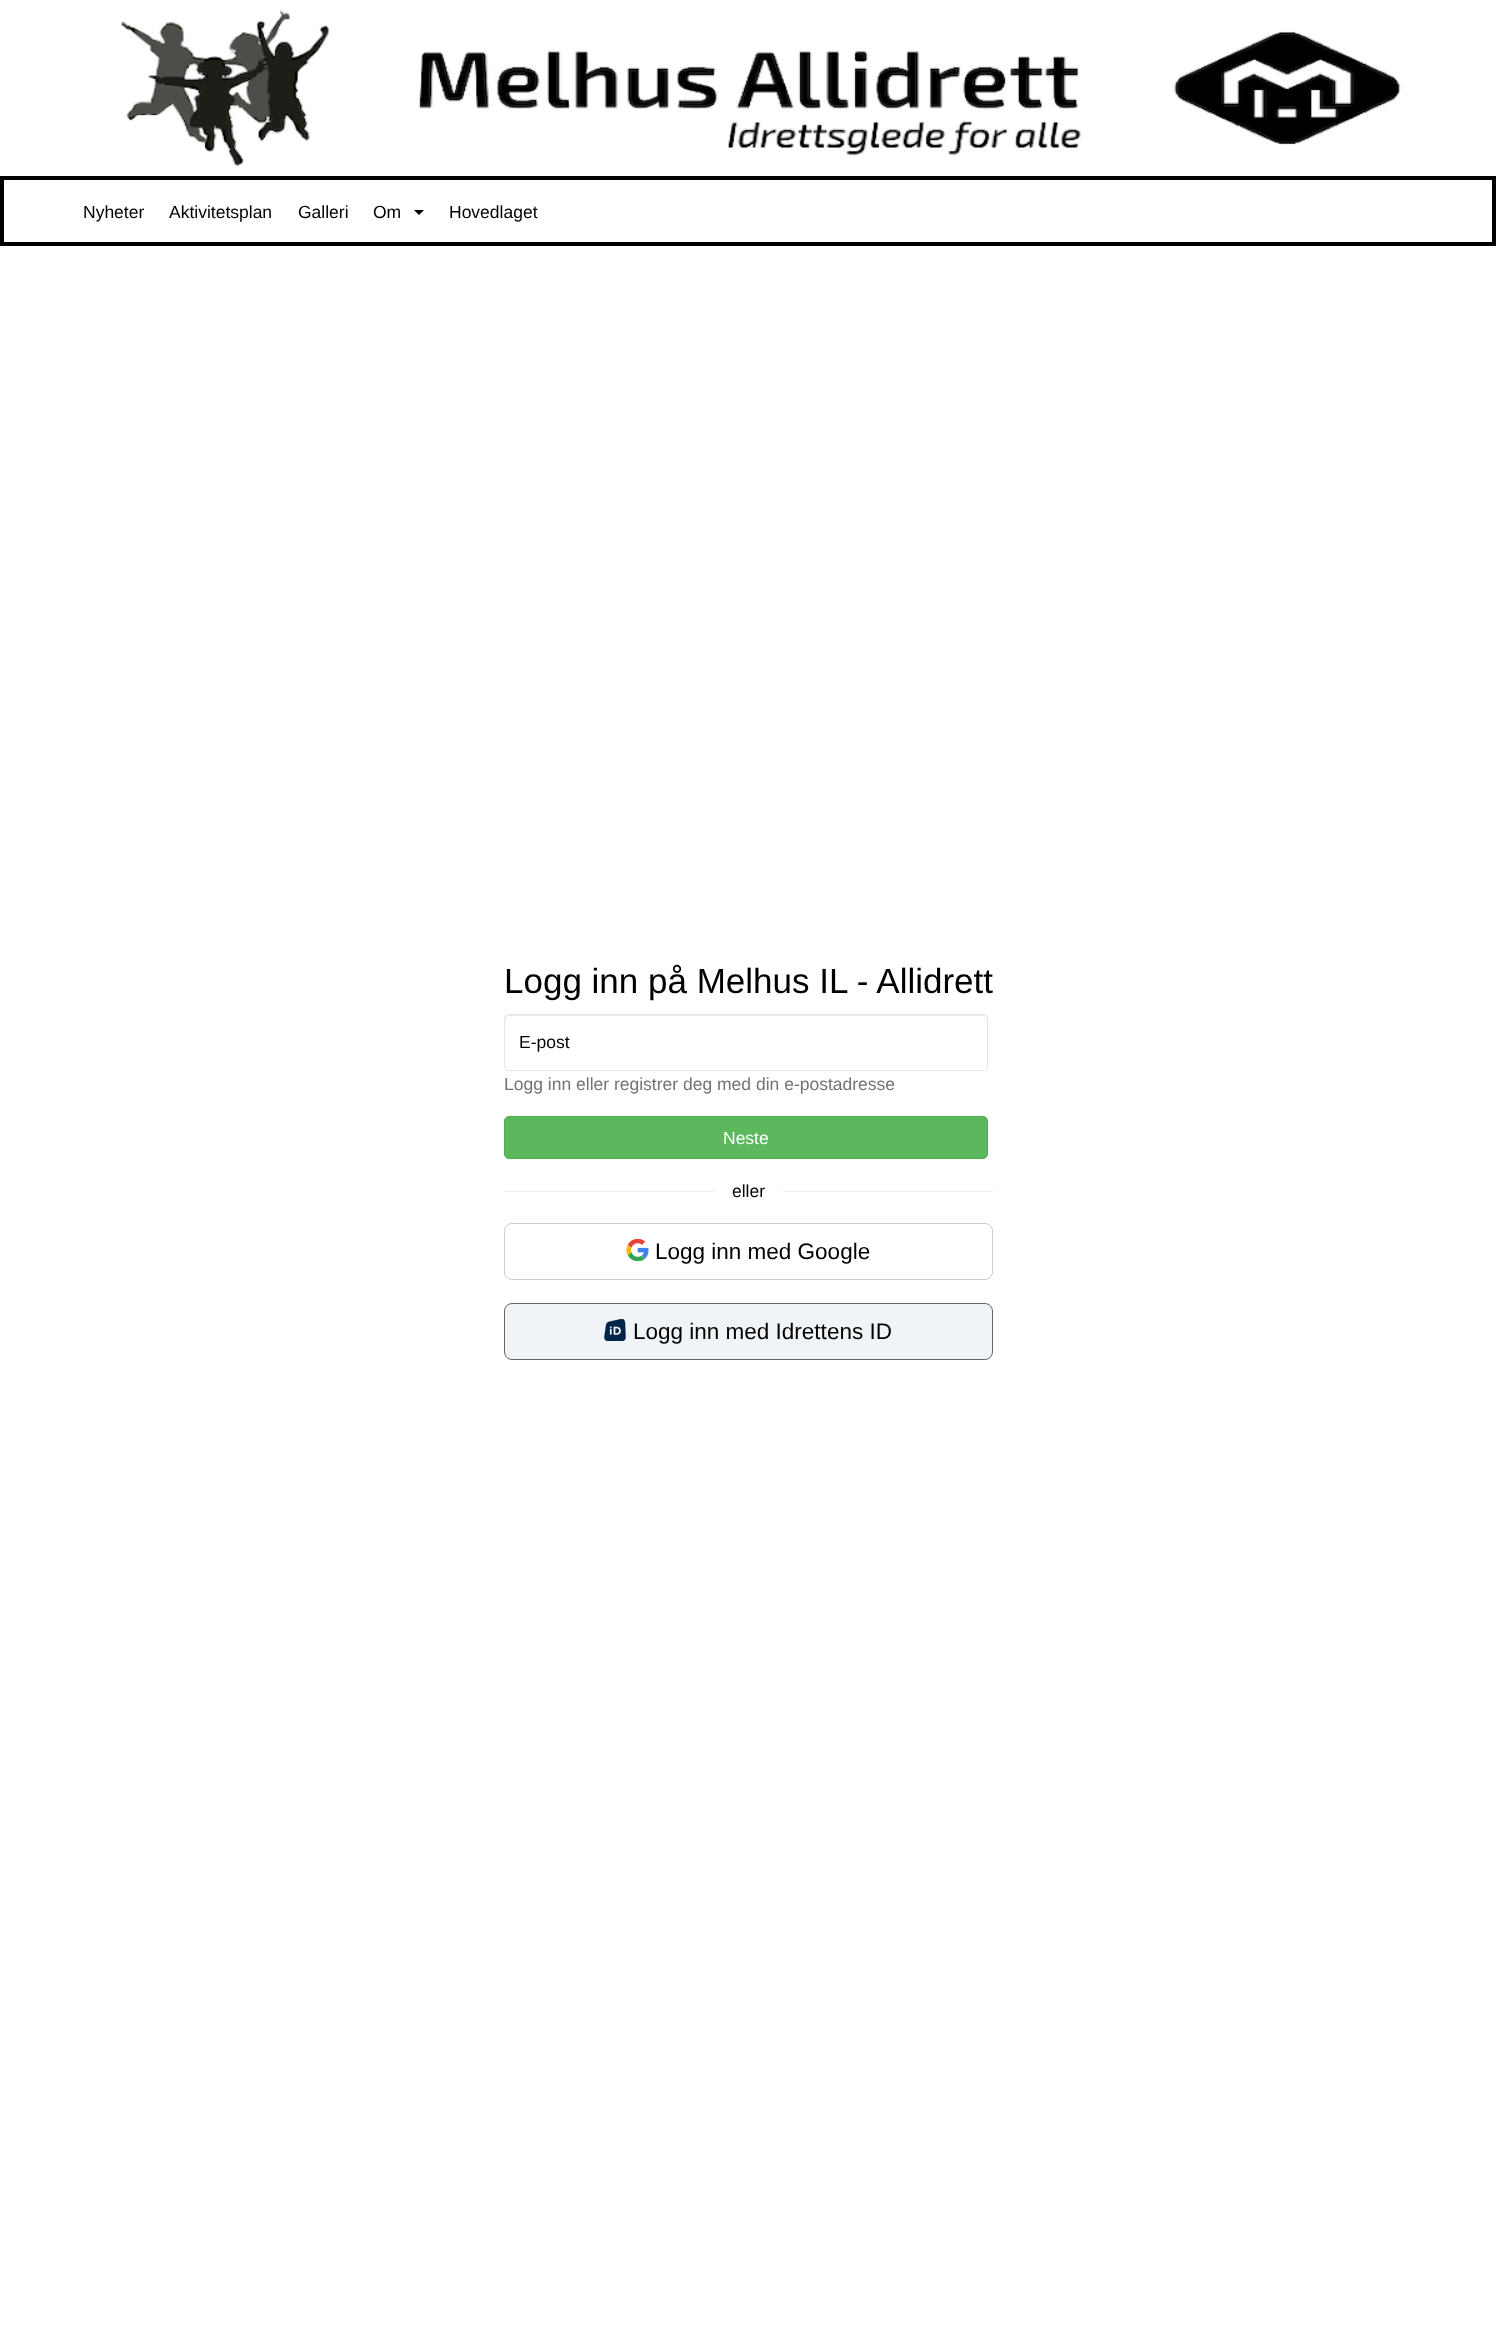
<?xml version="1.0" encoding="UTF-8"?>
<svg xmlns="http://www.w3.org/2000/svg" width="1496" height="2331">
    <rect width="100%" height="100%" fill="#FFFFFF"/>
    <image x="120" y="10" width="1281" height="157" href="img_01.png"/>
    <rect x="2" y="178" width="1492" height="66" fill="none" stroke="#000000" stroke-width="4"/>
    <text x="83" y="218" font-family="Liberation Sans" font-size="17.5" fill="#000000">Nyheter</text>
    <text x="169" y="218" font-family="Liberation Sans" font-size="17.5" fill="#000000">Aktivitetsplan</text>
    <text x="298" y="218" font-family="Liberation Sans" font-size="17.5" fill="#000000">Galleri</text>
    <text x="373" y="218" font-family="Liberation Sans" font-size="17.5" fill="#000000">Om</text>
    <path d="M 414 210 H 424 L 419 215 Z" fill="#000000"/>
    <text x="449" y="218" font-family="Liberation Sans" font-size="17.5" fill="#000000">Hovedlaget</text>
    <text x="504" y="993" font-family="Liberation Sans" font-size="35" fill="#000000">Logg inn på Melhus IL - Allidrett</text>
    <path d="M 509 1016 H 982 C 985 1016 986 1018 986 1020 C 986 1017 985 1015 982 1015 H 509 C 506 1015 505 1017 505 1020 C 505 1018 507 1016 509 1016 Z" fill="#ECECEC"/>
    <rect x="504.5" y="1014.5" width="483" height="56" rx="4.5" fill="none" stroke="#E4E4E7"/>
    <text x="519" y="1048" font-family="Liberation Sans" font-size="17.5" fill="#000000">E-post</text>
    <text x="504" y="1090" font-family="Liberation Sans" font-size="17.5" fill="#737373">Logg inn eller registrer deg med din e-postadresse</text>
    <rect x="504.5" y="1116.5" width="483" height="42" rx="4.5" fill="#5CB85C" stroke="#4CAE4C"/>
    <text x="723" y="1144" font-family="Liberation Sans" font-size="17.5" fill="#FFFFFF">Neste</text>
    <rect x="504" y="1191" width="210" height="1" fill="#EDEAE9"/>
    <text x="732" y="1197" font-family="Liberation Sans" font-size="17.5" fill="#000000">eller</text>
    <rect x="783" y="1191" width="210" height="1" fill="#EDEAE9"/>
    <rect x="504.5" y="1223.5" width="488" height="56" rx="7.5" fill="none" stroke="#CFCBCB"/>
    <image x="626" y="1239" width="23" height="22" href="img_02.png"/>
    <text x="655" y="1259" font-family="Liberation Sans" font-size="22.5" fill="#000000">Logg inn med Google</text>
    <rect x="504.5" y="1303.5" width="488" height="56" rx="7.5" fill="#F0F4F7" stroke="#666666"/>
    <image x="604" y="1319" width="22" height="22" href="img_03.png"/>
    <text x="633" y="1339" font-family="Liberation Sans" font-size="22.5" fill="#000000">Logg inn med Idrettens ID</text>
</svg>
